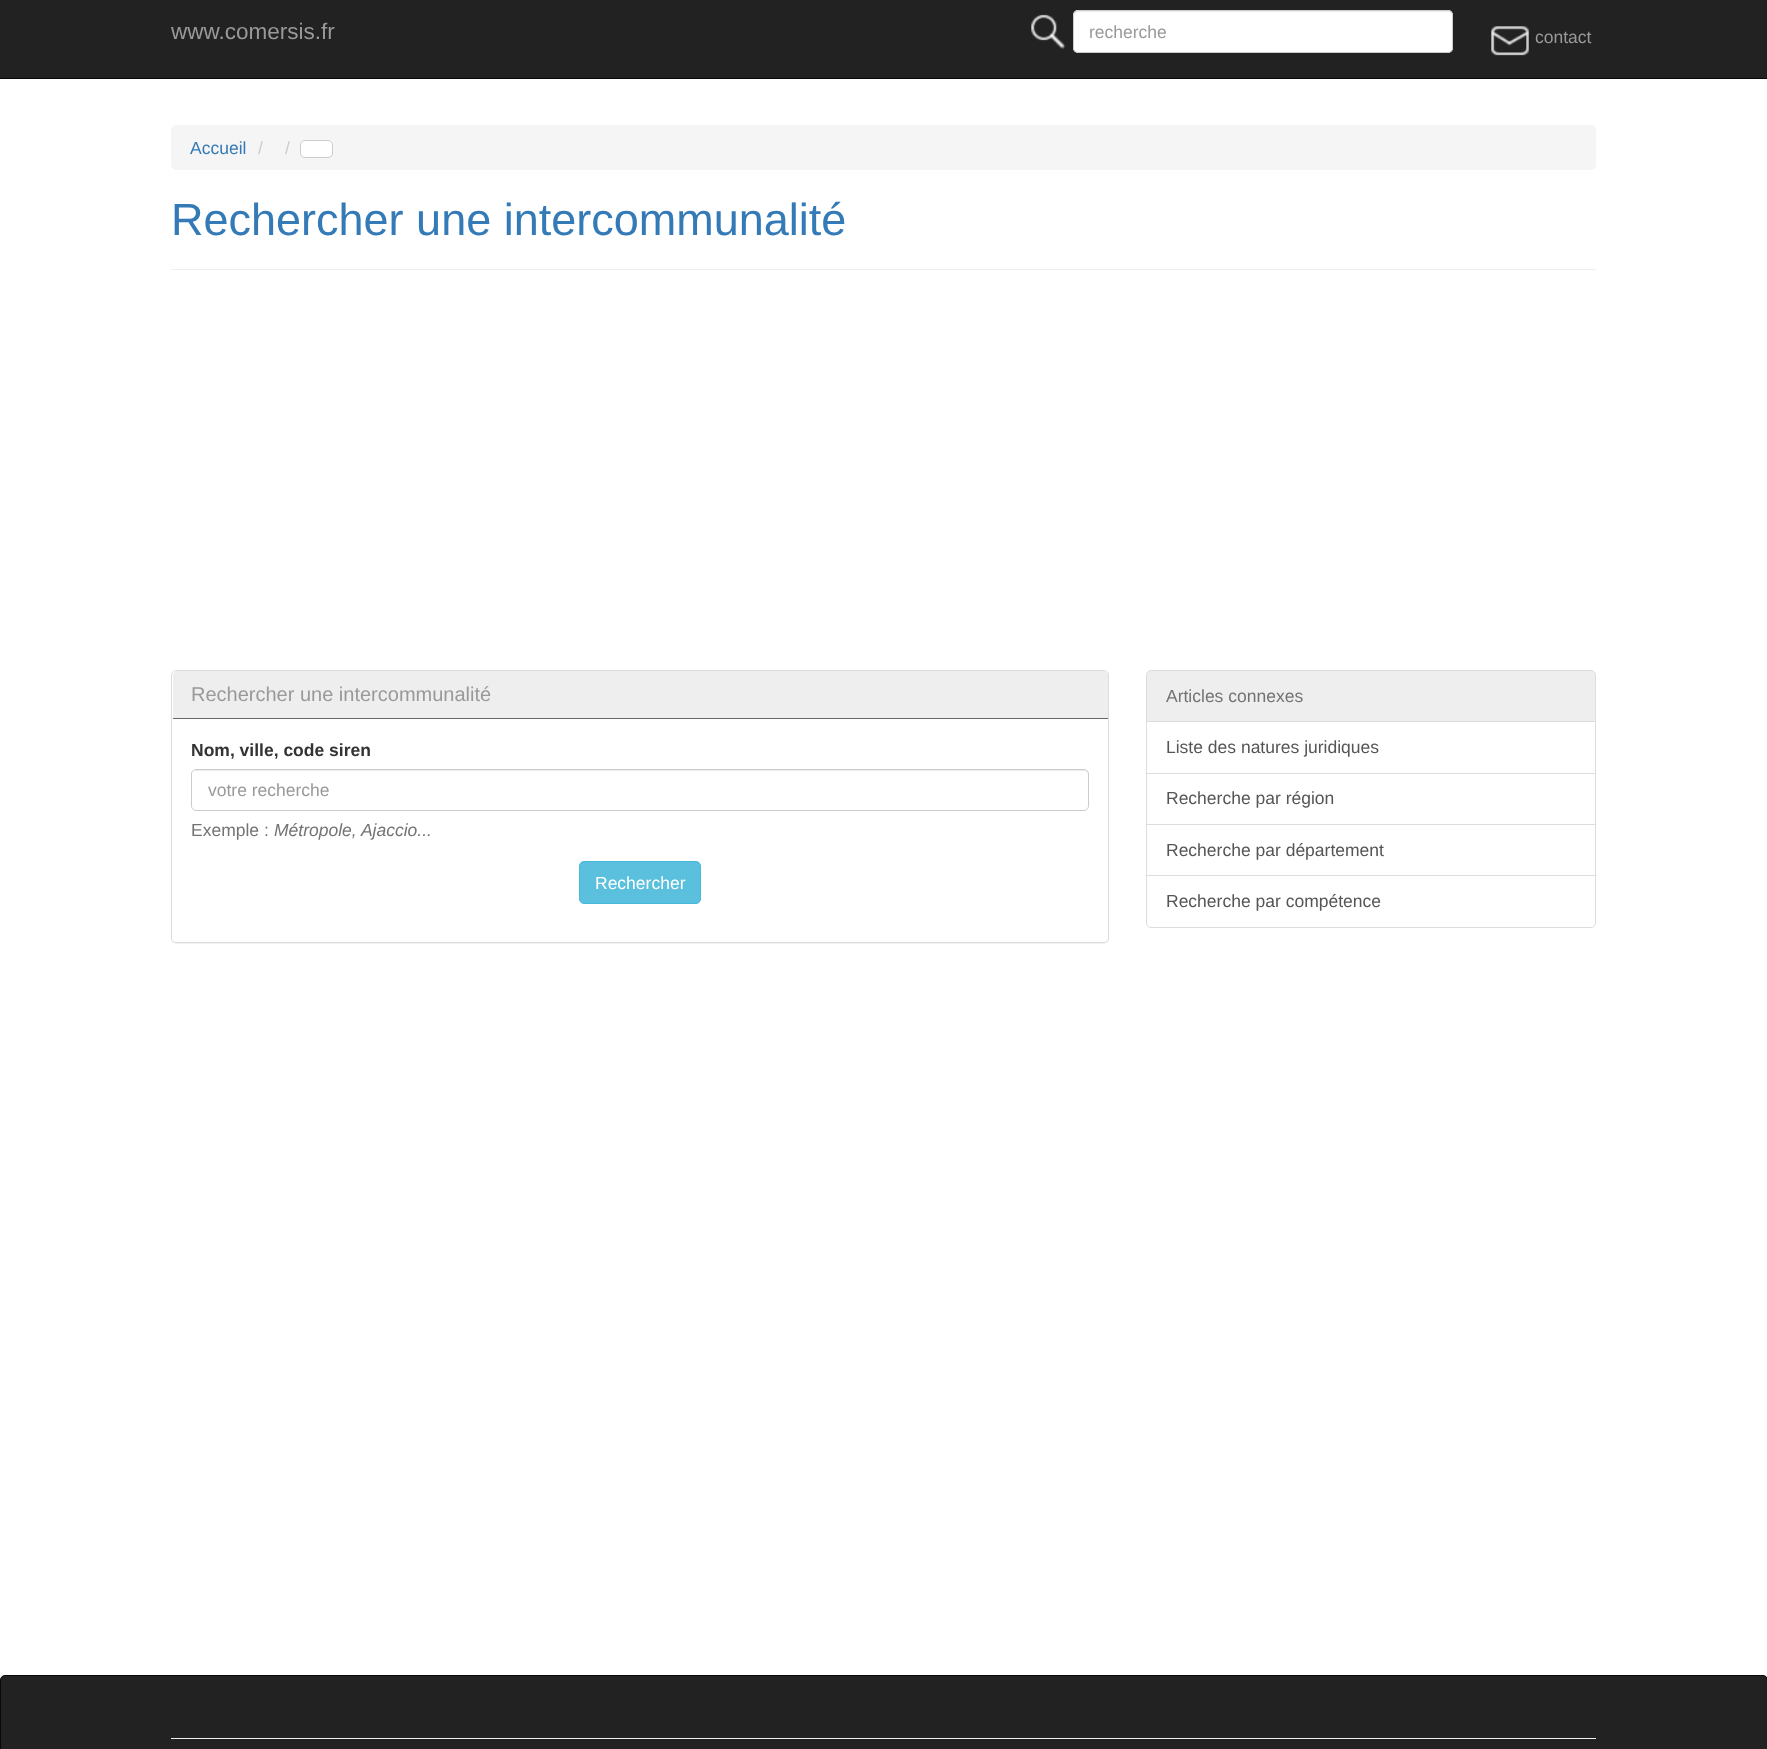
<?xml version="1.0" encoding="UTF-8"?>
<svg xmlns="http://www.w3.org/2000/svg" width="1767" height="1749">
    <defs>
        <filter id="blur1" x="-50%" y="-200%" width="200%" height="500%"><feGaussianBlur stdDeviation="0.5"/></filter>
    </defs>
    <rect width="100%" height="100%" fill="#FFFFFF"/>
    <rect x="0" y="0" width="1767" height="78" fill="#222222"/>
    <rect x="0" y="78" width="1767" height="1" fill="#080808"/>
    <text x="171" y="39" font-family="Liberation Sans" font-size="22.5" fill="#999999">www.comersis.fr</text>
    <image x="1031" y="14" width="35" height="35" href="img_01.png"/>
    <rect x="1073" y="10" width="380" height="43" rx="5" fill="#FFFFFF"/>
    <path d="M 1078 12 H 1448 C 1450 12 1451 14 1451 16 C 1451 13 1450 11 1447 11 H 1078 C 1075 11 1074 13 1074 16 C 1074 14 1075 12 1078 12 Z" fill="#ECECEC"/>
    <rect x="1073.5" y="10.5" width="379" height="42" rx="4.5" fill="none" stroke="#CCCCCC"/>
    <text x="1089" y="38" font-family="Liberation Sans" font-size="17.5" fill="#999999">recherche</text>
    <image x="1491" y="26" width="38" height="30" href="img_02.png"/>
    <text x="1535" y="43" font-family="Liberation Sans" font-size="17.5" fill="#999999">contact</text>
    <rect x="171" y="269" width="1425" height="1" fill="#EEEEEE"/>
    <rect x="171" y="125" width="1425" height="45" rx="5" fill="#F5F5F5"/>
    <text x="190" y="154" font-family="Liberation Sans" font-size="17.5" fill="#337AB7">Accueil</text>
    <text x="258" y="154" font-family="Liberation Sans" font-size="17.5" fill="#CCCCCC">/</text>
    <text x="285" y="154" font-family="Liberation Sans" font-size="17.5" fill="#CCCCCC">/</text>
    <rect x="300.5" y="140.5" width="32" height="17" rx="4.5" fill="#FFFFFF" stroke="#CCCCCC"/>
    <text x="171" y="235" font-family="Liberation Sans" font-size="45" fill="#337AB7">Rechercher une intercommunalité</text>
    <rect x="171" y="671" width="938" height="273" rx="5" fill="#000000" fill-opacity="0.05" filter="url(#blur1)"/>
    <rect x="171.5" y="670.5" width="937" height="272" rx="4.5" fill="#FFFFFF" stroke="#DDDDDD"/>
    <path d="M 177 671 H 1104 C 1106 671 1108 673 1108 675 V 719 H 173 V 675 C 173 673 175 671 177 671 Z" fill="#EEEEEE"/>
    <rect x="173" y="718" width="935" height="1" fill="#666666"/>
    <text x="191" y="701" font-family="Liberation Sans" font-size="20" fill="#999999">Rechercher une intercommunalité</text>
    <text x="191" y="756" font-family="Liberation Sans" font-size="17.5" font-weight="700" fill="#333333">Nom, ville, code siren</text>
    <path d="M 196 771 H 1084 C 1086 771 1088 773 1088 775 V 774 C 1088 772 1086 770 1084 770 H 197 C 196 770 194 771 194 772 Z" fill="#ECECEC"/>
    <rect x="191.5" y="769.5" width="897" height="41" rx="4.5" fill="none" stroke="#CCCCCC"/>
    <text x="208" y="796" font-family="Liberation Sans" font-size="17.5" fill="#999999">votre recherche</text>
    <text x="191" y="836" font-family="Liberation Sans" font-size="17.5" fill="#737373">Exemple :</text>
    <text x="274" y="836" font-family="Liberation Sans" font-size="17.5" font-style="italic" fill="#737373">Métropole, Ajaccio...</text>
    <rect x="579.5" y="861.5" width="121" height="42" rx="4.5" fill="#5BC0DE" stroke="#46B8DA"/>
    <text x="595" y="889" font-family="Liberation Sans" font-size="17.5" fill="#FFFFFF">Rechercher</text>
    <path d="M 1151 670.5 H 1591 C 1593.5 670.5 1595.5 672.5 1595.5 675 V 722.5 H 1146.5 V 675 C 1146.5 672.5 1148.5 670.5 1151 670.5 Z" fill="#EEEEEE" stroke="#DDDDDD"/>
    <text x="1166" y="702" font-family="Liberation Sans" font-size="17.5" fill="#737373">Articles connexes</text>
    <rect x="1147" y="722" width="448" height="1" fill="#FFFFFF"/>
    <rect x="1146.5" y="721.5" width="449" height="52" fill="none" stroke="#DDDDDD"/>
    <text x="1166" y="753" font-family="Liberation Sans" font-size="17.5" fill="#555555">Liste des natures juridiques</text>
    <rect x="1146.5" y="773.5" width="449" height="51" fill="none" stroke="#DDDDDD"/>
    <text x="1166" y="804" font-family="Liberation Sans" font-size="17.5" fill="#555555">Recherche par région</text>
    <rect x="1146.5" y="824.5" width="449" height="51" fill="none" stroke="#DDDDDD"/>
    <text x="1166" y="856" font-family="Liberation Sans" font-size="17.5" fill="#555555">Recherche par département</text>
    <path d="M 1146.5 875.5 H 1595.5 V 923 C 1595.5 925.5 1593.5 927.5 1591 927.5 H 1151 C 1148.5 927.5 1146.5 925.5 1146.5 923 Z" fill="#FFFFFF" stroke="#DDDDDD"/>
    <text x="1166" y="907" font-family="Liberation Sans" font-size="17.5" fill="#555555">Recherche par compétence</text>
    <rect x="0" y="1675" width="1767" height="5" fill="#F5F5F5"/>
    <rect x="0.5" y="1675.5" width="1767" height="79" rx="4.5" fill="#222222" stroke="#080808"/>
    <rect x="171" y="1738" width="1425" height="1" fill="#EEEEEE"/>
</svg>
